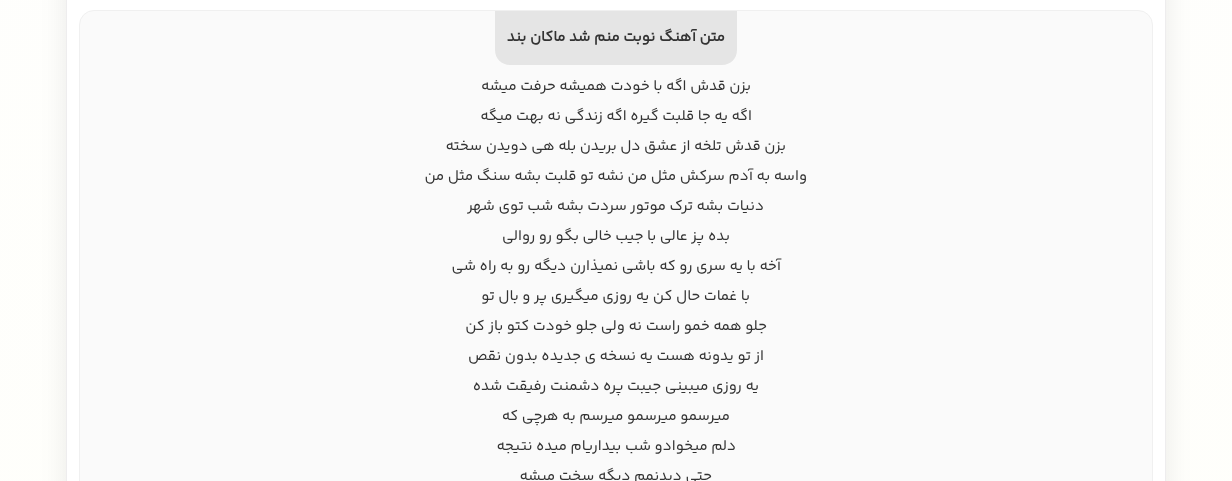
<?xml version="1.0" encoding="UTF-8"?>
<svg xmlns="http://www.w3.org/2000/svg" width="1232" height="481">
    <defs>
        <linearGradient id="g1" gradientUnits="userSpaceOnUse" x1="616" y1="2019" x2="616" y2="-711"><stop offset="0" stop-color="#FFFFF7"/><stop offset="1" stop-color="#FEFEFE"/></linearGradient>
        <filter id="blur1" x="-50%" y="-200%" width="200%" height="500%"><feGaussianBlur stdDeviation="13.5"/></filter>
    </defs>
    <rect width="100%" height="100%" fill="#FFFFFF"/>
    <rect x="0" y="0" width="1232" height="481" fill="url(#g1)"/>
    <rect x="66" y="-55" width="1100" height="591" rx="14" fill="#05010D" fill-opacity="0.08" filter="url(#blur1)"/>
    <rect x="66.5" y="-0.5" width="1099" height="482" fill="#FFFFFF" stroke="#EEEDEE"/>
    <rect x="79.5" y="10.5" width="1073" height="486" rx="14.5" fill="#FAFAFA" stroke="#F0F0F0"/>
    <path d="M 495 11 H 737 V 50 C 737 58.5 730.5 65 722 65 H 510 C 501.5 65 495 58.5 495 50 Z" fill="#E5E5E5"/>
    <text x="725" y="41" font-family="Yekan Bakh" font-size="15" font-weight="700" direction="rtl" fill="#333333">متن آهنگ نوبت منم شد ماکان بند</text>
    <text x="751" y="90" font-family="Yekan Bakh" font-size="15" direction="rtl" fill="#333333">بزن قدش اگه با خودت همیشه حرفت میشه</text>
    <text x="752" y="120" font-family="Yekan Bakh" font-size="15" direction="rtl" fill="#333333">اگه یه جا قلبت گیره اگه زندگی نه بهت میگه</text>
    <text x="786" y="150" font-family="Yekan Bakh" font-size="15" direction="rtl" fill="#333333">بزن قدش تلخه از عشق دل بریدن بله هی دویدن سخته</text>
    <text x="807" y="180" font-family="Yekan Bakh" font-size="15" direction="rtl" fill="#333333">واسه به آدم سرکش مثل من نشه تو قلبت بشه سنگ مثل من</text>
    <text x="764" y="210" font-family="Yekan Bakh" font-size="15" direction="rtl" fill="#333333">دنیات بشه ترک موتور سردت بشه شب توی شهر</text>
    <text x="730" y="240" font-family="Yekan Bakh" font-size="15" direction="rtl" fill="#333333">بده پز عالی با جیب خالی بگو رو‌ روالی</text>
    <text x="781" y="270" font-family="Yekan Bakh" font-size="15" direction="rtl" fill="#333333">آخه با یه سری رو‌ که باشی نمیذارن دیگه رو به راه شی</text>
    <text x="750" y="300" font-family="Yekan Bakh" font-size="15" direction="rtl" fill="#333333">با غمات حال کن یه روزی میگیری پر و بال تو</text>
    <text x="767" y="330" font-family="Yekan Bakh" font-size="15" direction="rtl" fill="#333333">جلو همه خمو راست نه ولی جلو خودت کتو باز کن</text>
    <text x="764" y="360" font-family="Yekan Bakh" font-size="15" direction="rtl" fill="#333333">از تو یدونه هست یه نسخه ی جدیده بدون نقص</text>
    <text x="759" y="390" font-family="Yekan Bakh" font-size="15" direction="rtl" fill="#333333">یه روزی میبینی جیبت پره دشمنت رفیقت شده</text>
    <text x="730" y="420" font-family="Yekan Bakh" font-size="15" direction="rtl" fill="#333333">میرسمو میرسمو میرسم به هرچی که</text>
    <text x="736" y="450" font-family="Yekan Bakh" font-size="15" direction="rtl" fill="#333333">دلم میخوادو شب بیداریام میده نتیجه</text>
    <text x="712" y="480" font-family="Yekan Bakh" font-size="15" direction="rtl" fill="#333333">حتی دیدنمم دیگه سخت میشه</text>
</svg>
